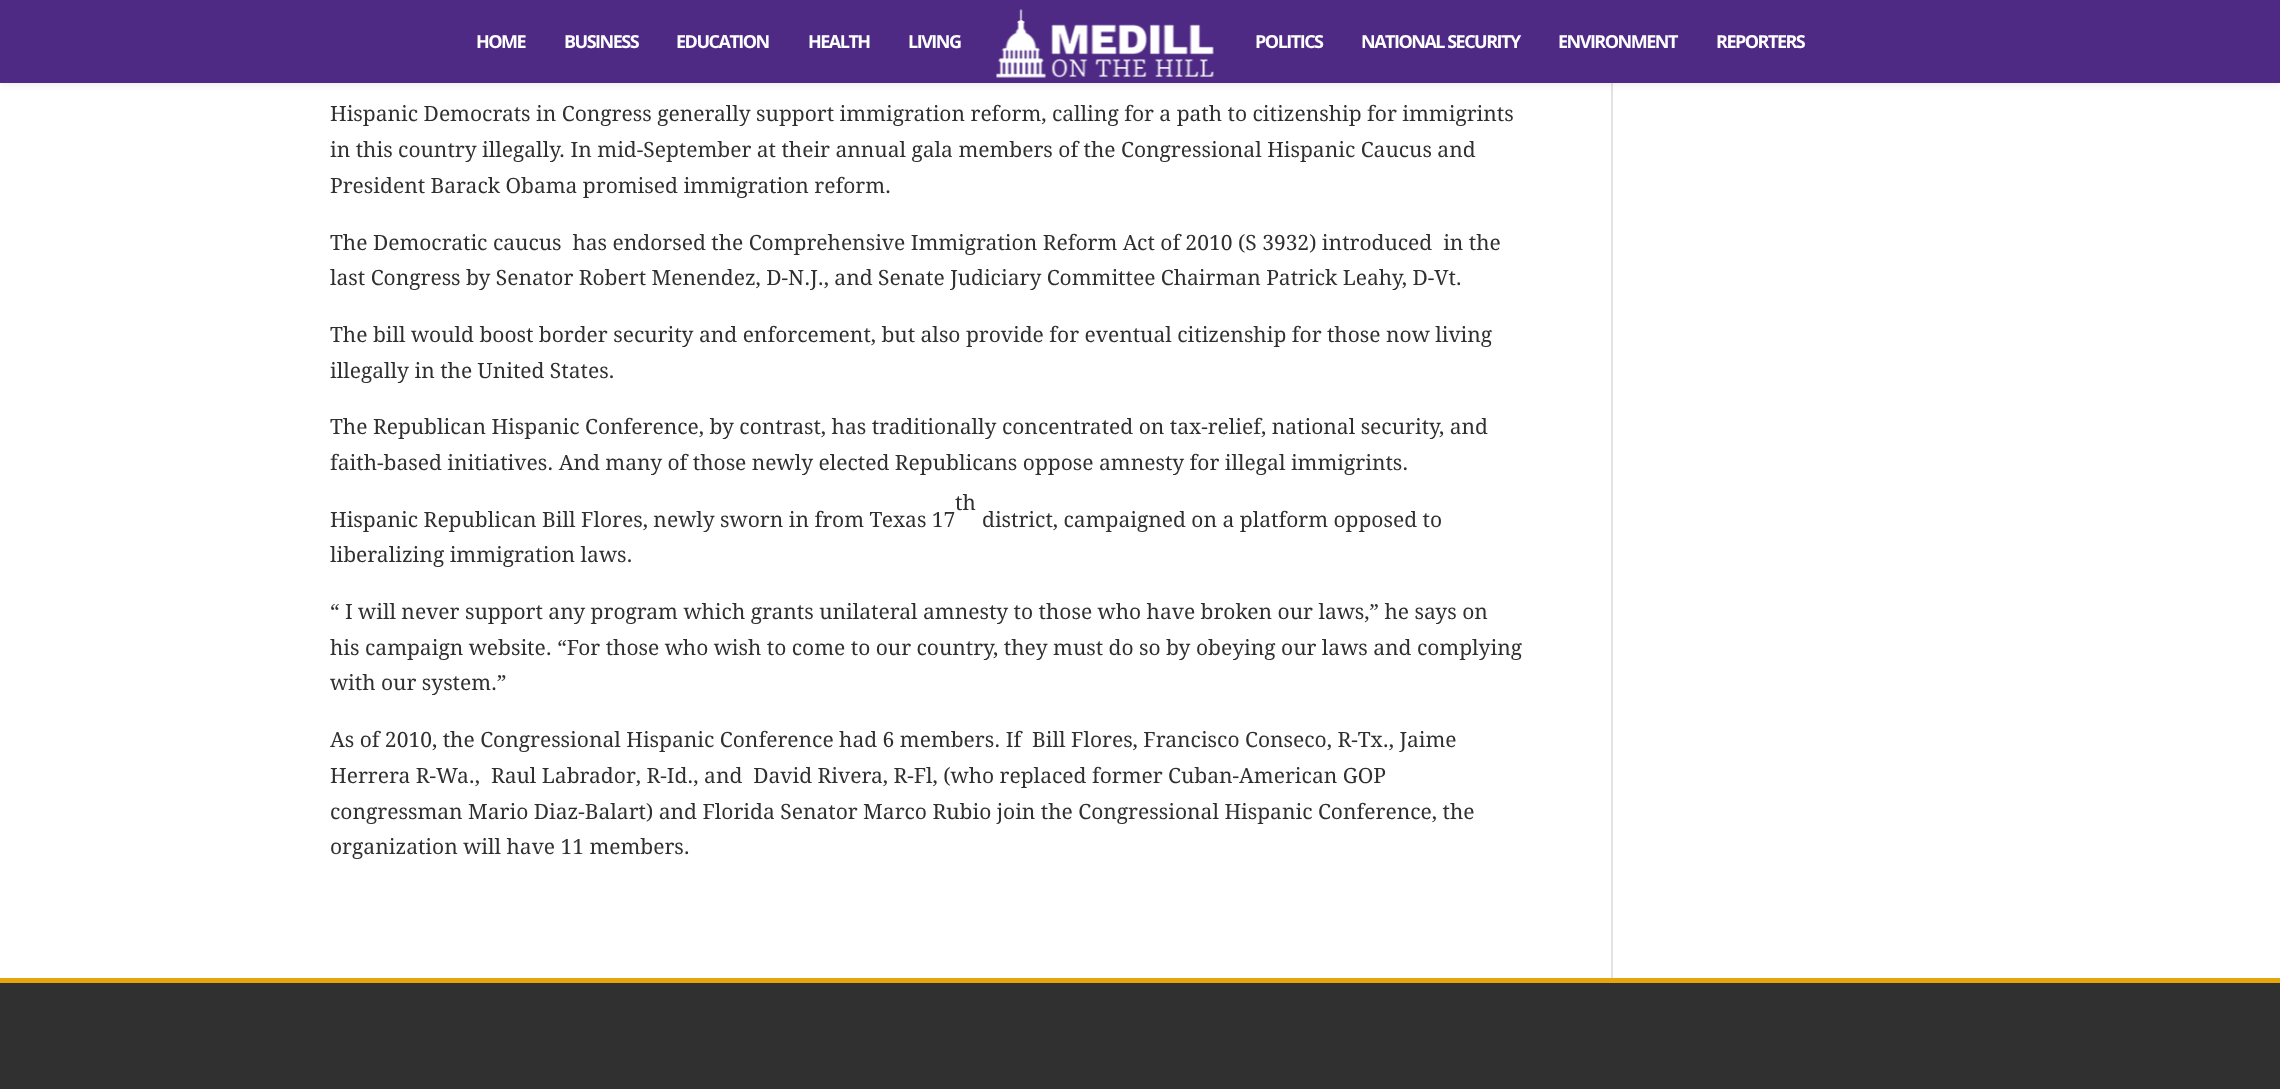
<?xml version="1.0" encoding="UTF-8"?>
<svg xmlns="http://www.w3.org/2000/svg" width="2280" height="1089">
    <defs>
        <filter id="blur1" x="-50%" y="-200%" width="200%" height="500%"><feGaussianBlur stdDeviation="5"/></filter>
    </defs>
    <rect width="100%" height="100%" fill="#FFFFFF"/>
    <rect x="1611" y="83" width="2" height="895" fill="#E2E2E2"/>
    <rect x="0" y="0" width="2280" height="83" fill="#000000" fill-opacity="0.1" filter="url(#blur1)"/>
    <rect x="0" y="0" width="2280" height="83" fill="#4E2A84"/>
    <text x="476" y="48" font-family="Open Sans" font-size="18" font-weight="700" letter-spacing="-1.5" fill="#FFFFFF">HOME</text>
    <text x="564" y="48" font-family="Open Sans" font-size="18" font-weight="700" letter-spacing="-1.5" fill="#FFFFFF">BUSINESS</text>
    <text x="676" y="48" font-family="Open Sans" font-size="18" font-weight="700" letter-spacing="-1.5" fill="#FFFFFF">EDUCATION</text>
    <text x="808" y="48" font-family="Open Sans" font-size="18" font-weight="700" letter-spacing="-1.5" fill="#FFFFFF">HEALTH</text>
    <text x="908" y="48" font-family="Open Sans" font-size="18" font-weight="700" letter-spacing="-1.5" fill="#FFFFFF">LIVING</text>
    <image x="996" y="9" width="218" height="69" href="img_01.png"/>
    <text x="1255" y="48" font-family="Open Sans" font-size="18" font-weight="700" letter-spacing="-1.5" fill="#FFFFFF">POLITICS</text>
    <text x="1361" y="48" font-family="Open Sans" font-size="18" font-weight="700" letter-spacing="-1.5" fill="#FFFFFF">NATIONAL SECURITY</text>
    <text x="1558" y="48" font-family="Open Sans" font-size="18" font-weight="700" letter-spacing="-1.5" fill="#FFFFFF">ENVIRONMENT</text>
    <text x="1716" y="48" font-family="Open Sans" font-size="18" font-weight="700" letter-spacing="-1.5" fill="#FFFFFF">REPORTERS</text>
    <text font-family="Droid Serif" font-size="21" fill="#303030">
        <tspan x="330" y="121">Hispanic Democrats in Congress generally support immigration reform, calling for a path to citizenship for immigrints</tspan>
        <tspan x="330" y="157">in this country illegally. In mid-September at their annual gala members of the Congressional Hispanic Caucus and</tspan>
        <tspan x="330" y="193">President Barack Obama promised immigration reform.</tspan>
    </text>
    <text font-family="Droid Serif" font-size="21" fill="#303030" xml:space="preserve"><tspan x="330" y="250">The Democratic caucus  has endorsed the Comprehensive Immigration Reform Act of 2010 (S 3932) introduced  in the</tspan><tspan x="330" y="285">last Congress by Senator Robert Menendez, D-N.J., and Senate Judiciary Committee Chairman Patrick Leahy, D-Vt.</tspan></text>
    <text font-family="Droid Serif" font-size="21" fill="#303030">
        <tspan x="330" y="342">The bill would boost border security and enforcement, but also provide for eventual citizenship for those now living</tspan>
        <tspan x="330" y="378">illegally in the United States.</tspan>
    </text>
    <text font-family="Droid Serif" font-size="21" fill="#303030">
        <tspan x="330" y="434">The Republican Hispanic Conference, by contrast, has traditionally concentrated on tax-relief, national security, and</tspan>
        <tspan x="330" y="470">faith-based initiatives. And many of those newly elected Republicans oppose amnesty for illegal immigrints.</tspan>
    </text>
    <text x="955" y="510" font-family="Droid Serif" font-size="21" fill="#303030">th</text>
    <text x="330" y="527" font-family="Droid Serif" font-size="21" fill="#303030">Hispanic Republican Bill Flores, newly sworn in from Texas 17</text>
    <text x="982" y="527" font-family="Droid Serif" font-size="21" fill="#303030">district, campaigned on a platform opposed to</text>
    <text x="330" y="562" font-family="Droid Serif" font-size="21" fill="#303030">liberalizing immigration laws.</text>
    <text font-family="Droid Serif" font-size="21" fill="#303030">
        <tspan x="330" y="619">“ I will never support any program which grants unilateral amnesty to those who have broken our laws,” he says on</tspan>
        <tspan x="330" y="655">his campaign website. “For those who wish to come to our country, they must do so by obeying our laws and complying</tspan>
        <tspan x="330" y="690">with our system.”</tspan>
    </text>
    <text font-family="Droid Serif" font-size="21" fill="#303030" xml:space="preserve"><tspan x="330" y="747">As of 2010, the Congressional Hispanic Conference had 6 members. If  Bill Flores, Francisco Conseco, R-Tx., Jaime</tspan><tspan x="330" y="783">Herrera R-Wa.,  Raul Labrador, R-Id., and  David Rivera, R-Fl, (who replaced former Cuban-American GOP</tspan><tspan x="330" y="819">congressman Mario Diaz-Balart) and Florida Senator Marco Rubio join the Congressional Hispanic Conference, the</tspan><tspan x="330" y="854">organization will have 11 members.</tspan></text>
    <rect x="0" y="983" width="2280" height="106" fill="#303030"/>
    <rect x="0" y="978" width="2280" height="5" fill="#E5A50B"/>
</svg>
